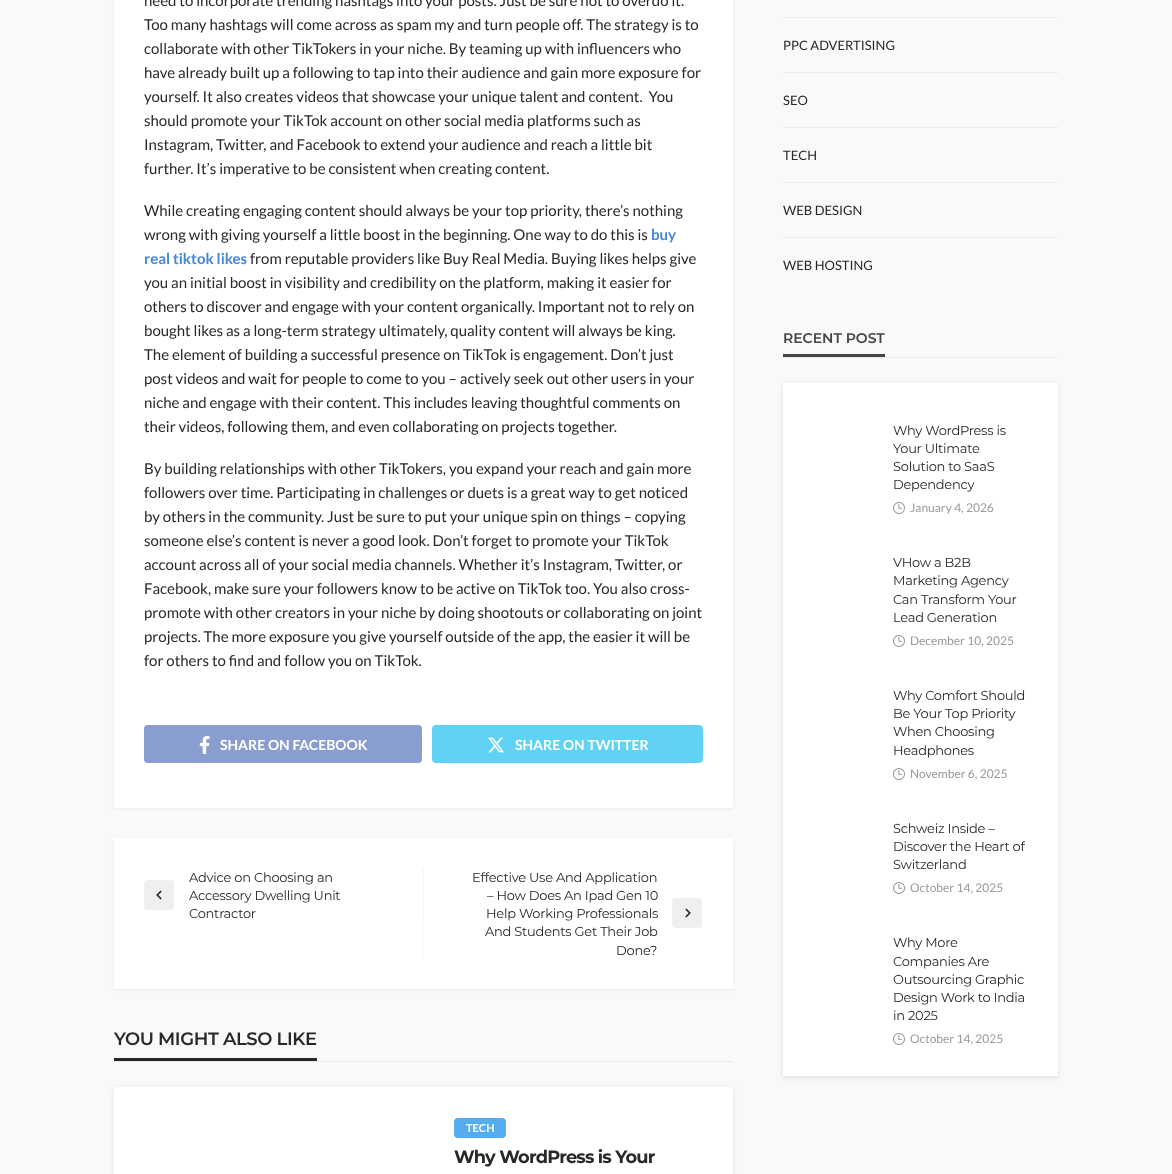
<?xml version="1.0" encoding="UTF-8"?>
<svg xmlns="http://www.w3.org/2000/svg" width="1172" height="1174">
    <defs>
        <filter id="blur1" x="-50%" y="-200%" width="200%" height="500%"><feGaussianBlur stdDeviation="1.5"/></filter>
        <filter id="blur2" x="-50%" y="-200%" width="200%" height="500%"><feGaussianBlur stdDeviation="2.5"/></filter>
    </defs>
    <rect width="100%" height="100%" fill="#F9F9F9"/>
    <rect x="114" y="-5" width="619" height="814" fill="#1C1C1C" fill-opacity="0.05" filter="url(#blur1)"/>
    <rect x="114" y="0" width="619" height="808" fill="#FFFFFF"/>
    <text font-family="Lato" font-size="15" fill="#282828" xml:space="preserve"><tspan x="144" y="6">need to incorporate trending hashtags into your posts. Just be sure not to overdo it.</tspan><tspan x="144" y="30">Too many hashtags will come across as spam my and turn people off. The strategy is to</tspan><tspan x="144" y="54">collaborate with other TikTokers in your niche. By teaming up with influencers who</tspan><tspan x="144" y="78">have already built up a following to tap into their audience and gain more exposure for</tspan><tspan x="144" y="102">yourself. It also creates videos that showcase your unique talent and content.  You</tspan><tspan x="144" y="126">should promote your TikTok account on other social media platforms such as</tspan><tspan x="144" y="150">Instagram, Twitter, and Facebook to extend your audience and reach a little bit</tspan><tspan x="144" y="174">further. It’s imperative to be consistent when creating content.</tspan></text>
    <text font-family="Lato" font-size="15" fill="#282828">
        <tspan x="144" y="216">While creating engaging content should always be your top priority, there’s nothing</tspan>
        <tspan x="144" y="240">wrong with giving yourself a little boost in the beginning. One way to do this is</tspan>
    </text>
    <text x="651" y="240" font-family="Lato" font-size="15" font-weight="700" fill="#4387D2">buy</text>
    <text x="144" y="264" font-family="Lato" font-size="15" font-weight="700" fill="#4387D2">real tiktok likes</text>
    <text x="250" y="264" font-family="Lato" font-size="15" fill="#282828">from reputable providers like Buy Real Media. Buying likes helps give</text>
    <text font-family="Lato" font-size="15" fill="#282828">
        <tspan x="144" y="288">you an initial boost in visibility and credibility on the platform, making it easier for</tspan>
        <tspan x="144" y="312">others to discover and engage with your content organically. Important not to rely on</tspan>
        <tspan x="144" y="336">bought likes as a long-term strategy ultimately, quality content will always be king.</tspan>
        <tspan x="144" y="360">The element of building a successful presence on TikTok is engagement. Don’t just</tspan>
        <tspan x="144" y="384">post videos and wait for people to come to you – actively seek out other users in your</tspan>
        <tspan x="144" y="408">niche and engage with their content. This includes leaving thoughtful comments on</tspan>
        <tspan x="144" y="432">their videos, following them, and even collaborating on projects together.</tspan>
    </text>
    <text font-family="Lato" font-size="15" fill="#282828">
        <tspan x="144" y="474">By building relationships with other TikTokers, you expand your reach and gain more</tspan>
        <tspan x="144" y="498">followers over time. Participating in challenges or duets is a great way to get noticed</tspan>
        <tspan x="144" y="522">by others in the community. Just be sure to put your unique spin on things – copying</tspan>
        <tspan x="144" y="546">someone else’s content is never a good look. Don’t forget to promote your TikTok</tspan>
        <tspan x="144" y="570">account across all of your social media channels. Whether it’s Instagram, Twitter, or</tspan>
        <tspan x="144" y="594">Facebook, make sure your followers know to be active on TikTok too. You also cross-</tspan>
        <tspan x="144" y="618">promote with other creators in your niche by doing shootouts or collaborating on joint</tspan>
        <tspan x="144" y="642">projects. The more exposure you give yourself outside of the app, the easier it will be</tspan>
        <tspan x="144" y="666">for others to find and follow you on TikTok.</tspan>
    </text>
    <rect x="144" y="725" width="278" height="38" rx="4" fill="#899DCE"/>
    <image x="199" y="736" width="11" height="18" href="img_01.png"/>
    <text x="220" y="750" font-family="Lato" font-size="14" font-weight="700" fill="#FFFFFF">SHARE ON FACEBOOK</text>
    <rect x="432" y="725" width="271" height="38" rx="4" fill="#60D2F5"/>
    <image x="488" y="737" width="16" height="16" href="img_02.png"/>
    <text x="515" y="750" font-family="Lato" font-size="14" font-weight="700" fill="#FFFFFF">SHARE ON TWITTER</text>
    <rect x="114" y="839" width="619" height="151" fill="#1C1C1C" fill-opacity="0.05" filter="url(#blur1)"/>
    <rect x="114" y="838" width="619" height="151" fill="#FFFFFF"/>
    <rect x="423" y="922" width="1" height="37" fill="#FAFAFA"/>
    <rect x="423" y="868" width="1" height="54" fill="#F5F5F5"/>
    <rect x="144" y="880" width="30" height="30" rx="4" fill="#EFEFEF"/>
    <image x="156" y="890" width="6" height="10" href="img_03.png"/>
    <text font-family="Montserrat" font-size="13" letter-spacing="-0.25" fill="#282828">
        <tspan x="189" y="882">Advice on Choosing an</tspan>
        <tspan x="189" y="900">Accessory Dwelling Unit</tspan>
        <tspan x="189" y="918">Contractor</tspan>
    </text>
    <text x="472" y="882" font-family="Montserrat" font-size="13" letter-spacing="-0.25" fill="#282828">Effective Use And Application</text>
    <text x="487" y="900" font-family="Montserrat" font-size="13" letter-spacing="-0.25" fill="#282828">– How Does An Ipad Gen 10</text>
    <text x="486" y="918" font-family="Montserrat" font-size="13" letter-spacing="-0.25" fill="#282828">Help Working Professionals</text>
    <text x="485" y="936" font-family="Montserrat" font-size="13" letter-spacing="-0.25" fill="#282828">And Students Get Their Job</text>
    <text x="616" y="955" font-family="Montserrat" font-size="13" letter-spacing="-0.25" fill="#282828">Done?</text>
    <rect x="672" y="898" width="30" height="30" rx="4" fill="#EFEFEF"/>
    <image x="685" y="908" width="6" height="10" href="img_04.png"/>
    <rect x="114" y="1061" width="619" height="1" fill="#EAEAEA"/>
    <rect x="114" y="1058" width="203" height="3" fill="#282828"/>
    <text x="114" y="1045" font-family="Montserrat" font-size="18" font-weight="600" letter-spacing="-0.4" fill="#282828">YOU MIGHT ALSO LIKE</text>
    <rect x="114" y="1089" width="619" height="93" fill="#000000" fill-opacity="0.1" filter="url(#blur2)"/>
    <rect x="114" y="1087" width="619" height="87" fill="#FFFFFF"/>
    <rect x="454" y="1118" width="52" height="20" rx="4" fill="#55ACEE"/>
    <text x="466" y="1132" font-family="Lato" font-size="11" font-weight="700" fill="#FFFFFF">TECH</text>
    <text x="454" y="1163" font-family="Montserrat" font-size="17.8" font-weight="700" letter-spacing="-0.8" fill="#282828">Why WordPress is Your</text>
    <rect x="783" y="17" width="275" height="1" fill="#EAEAEA"/>
    <rect x="783" y="72" width="275" height="1" fill="#EAEAEA"/>
    <text x="783" y="50" font-family="Lato" font-size="13" fill="#282828">PPC ADVERTISING</text>
    <rect x="783" y="127" width="275" height="1" fill="#EAEAEA"/>
    <text x="783" y="105" font-family="Lato" font-size="13" fill="#282828">SEO</text>
    <rect x="783" y="182" width="275" height="1" fill="#EAEAEA"/>
    <text x="783" y="160" font-family="Lato" font-size="13" fill="#282828">TECH</text>
    <rect x="783" y="237" width="275" height="1" fill="#EAEAEA"/>
    <text x="783" y="215" font-family="Lato" font-size="13" fill="#282828">WEB DESIGN</text>
    <text x="783" y="270" font-family="Lato" font-size="13" fill="#282828">WEB HOSTING</text>
    <rect x="783" y="357" width="275" height="1" fill="#EAEAEA"/>
    <rect x="783" y="354" width="102" height="3" fill="#444444"/>
    <text x="783" y="343" font-family="Montserrat" font-size="14" font-weight="600" fill="#444444">RECENT POST</text>
    <rect x="783" y="385" width="275" height="693" fill="#1C1C1C" fill-opacity="0.1" filter="url(#blur2)"/>
    <rect x="783" y="383" width="275" height="693" fill="#FFFFFF"/>
    <text font-family="Montserrat" font-size="13" letter-spacing="-0.25" fill="#282828">
        <tspan x="893" y="435">Why WordPress is</tspan>
        <tspan x="893" y="453">Your Ultimate</tspan>
        <tspan x="893" y="471">Solution to SaaS</tspan>
        <tspan x="893" y="489">Dependency</tspan>
    </text>
    <image x="893" y="502" width="12" height="12" href="img_05.png"/>
    <text x="910" y="512" font-family="Lato" font-size="12" fill="#999999">January 4, 2026</text>
    <text font-family="Montserrat" font-size="13" letter-spacing="-0.25" fill="#282828">
        <tspan x="893" y="567">VHow a B2B</tspan>
        <tspan x="893" y="585">Marketing Agency</tspan>
        <tspan x="893" y="604">Can Transform Your</tspan>
        <tspan x="893" y="622">Lead Generation</tspan>
    </text>
    <image x="893" y="635" width="12" height="12" href="img_05.png"/>
    <text x="910" y="645" font-family="Lato" font-size="12" fill="#999999">December 10, 2025</text>
    <text font-family="Montserrat" font-size="13" letter-spacing="-0.25" fill="#282828">
        <tspan x="893" y="700">Why Comfort Should</tspan>
        <tspan x="893" y="718">Be Your Top Priority</tspan>
        <tspan x="893" y="736">When Choosing</tspan>
        <tspan x="893" y="755">Headphones</tspan>
    </text>
    <image x="893" y="768" width="12" height="12" href="img_05.png"/>
    <text x="910" y="778" font-family="Lato" font-size="12" fill="#999999">November 6, 2025</text>
    <text font-family="Montserrat" font-size="13" letter-spacing="-0.25" fill="#282828">
        <tspan x="893" y="833">Schweiz Inside –</tspan>
        <tspan x="893" y="851">Discover the Heart of</tspan>
        <tspan x="893" y="869">Switzerland</tspan>
    </text>
    <image x="893" y="882" width="12" height="12" href="img_05.png"/>
    <text x="910" y="892" font-family="Lato" font-size="12" fill="#999999">October 14, 2025</text>
    <text font-family="Montserrat" font-size="13" letter-spacing="-0.25" fill="#282828">
        <tspan x="893" y="947">Why More</tspan>
        <tspan x="893" y="966">Companies Are</tspan>
        <tspan x="893" y="984">Outsourcing Graphic</tspan>
        <tspan x="893" y="1002">Design Work to India</tspan>
        <tspan x="893" y="1020">in 2025</tspan>
    </text>
    <image x="893" y="1033" width="12" height="12" href="img_05.png"/>
    <text x="910" y="1043" font-family="Lato" font-size="12" fill="#999999">October 14, 2025</text>
</svg>
